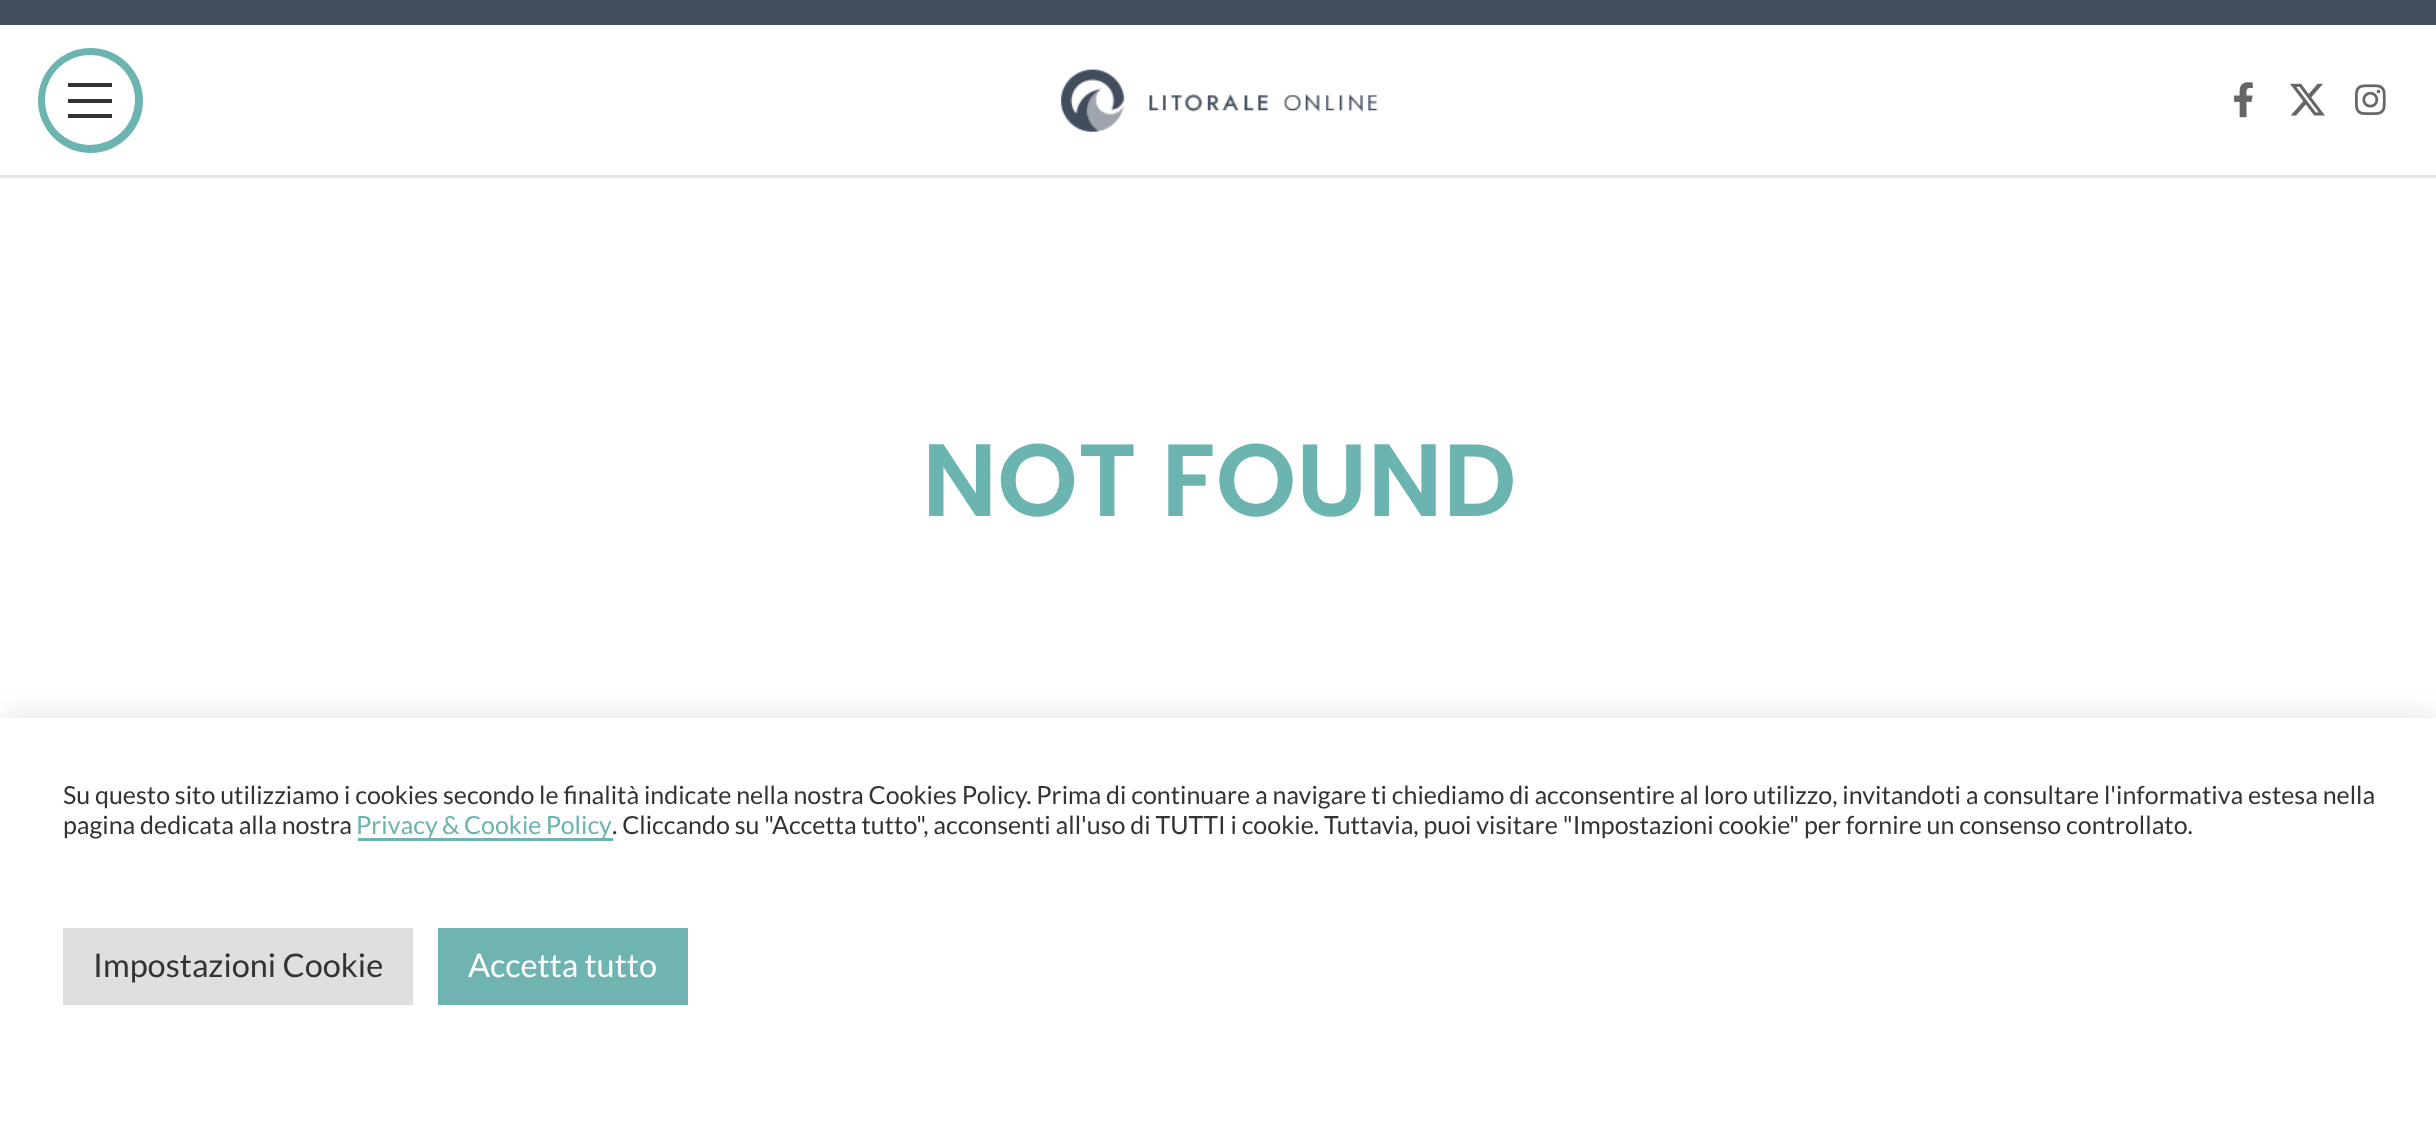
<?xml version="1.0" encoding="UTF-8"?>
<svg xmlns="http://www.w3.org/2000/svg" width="2436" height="1144">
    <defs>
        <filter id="blur1" x="-50%" y="-200%" width="200%" height="500%"><feGaussianBlur stdDeviation="12.5"/></filter>
    </defs>
    <rect width="100%" height="100%" fill="#FFFFFF"/>
    <rect x="0" y="0" width="2436" height="25" fill="#424D5D"/>
    <rect x="0" y="175" width="2436" height="3" fill="#E6E6E6"/>
    <circle cx="90.5" cy="100.5" r="52.5" fill="#6CB4B0"/>
    <circle cx="90" cy="100" r="45" fill="#FFFFFF"/>
    <path d="M 68 87 H 112 V 83 H 68 Z M 68 103 H 112 V 99 H 68 Z M 68 118 H 112 V 114 H 68 Z" fill="#333333"/>
    <image x="1060" y="69" width="318" height="63" href="img_01.png"/>
    <image x="2234" y="82" width="19" height="36" href="img_02.png"/>
    <image x="2290" y="83" width="35" height="33" href="img_03.png"/>
    <image x="2355" y="84" width="31" height="31" href="img_04.png"/>
    <text x="922" y="516" font-family="Poppins" font-size="102.5" font-weight="600" fill="#6CB4B0">NOT FOUND</text>
    <rect x="0" y="715" width="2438" height="428" fill="#ACABAB" fill-opacity="0.3" filter="url(#blur1)"/>
    <rect x="0" y="718" width="2436" height="426" fill="#FFFFFF"/>
    <text font-family="Lato" font-size="25" fill="#333333">
        <tspan x="63" y="804">Su questo sito utilizziamo i cookies secondo le finalità indicate nella nostra Cookies Policy. Prima di continuare a navigare ti chiediamo di acconsentire al loro utilizzo, invitandoti a consultare l'informativa estesa nella</tspan>
        <tspan x="63" y="834">pagina dedicata alla nostra</tspan>
    </text>
    <rect x="358" y="838" width="255" height="3" fill="#6CB4B0"/>
    <text x="356" y="834" word-spacing="-0.5" font-family="Lato" font-size="25" fill="#6CB4B0">Privacy &amp; Cookie Policy</text>
    <text x="612" y="834" font-family="Lato" font-size="25" fill="#333333">. Cliccando su "Accetta tutto", acconsenti all'uso di TUTTI i cookie. Tuttavia, puoi visitare "Impostazioni cookie" per fornire un consenso controllato.</text>
    <rect x="63" y="928" width="350" height="77" fill="#DEDFE0"/>
    <text x="93" y="977" font-family="Lato" font-size="32.5" fill="#333333">Impostazioni Cookie</text>
    <rect x="438" y="928" width="250" height="77" fill="#6FB4B0"/>
    <text x="468" y="977" font-family="Lato" font-size="32.5" fill="#FFFFFF">Accetta tutto</text>
</svg>
